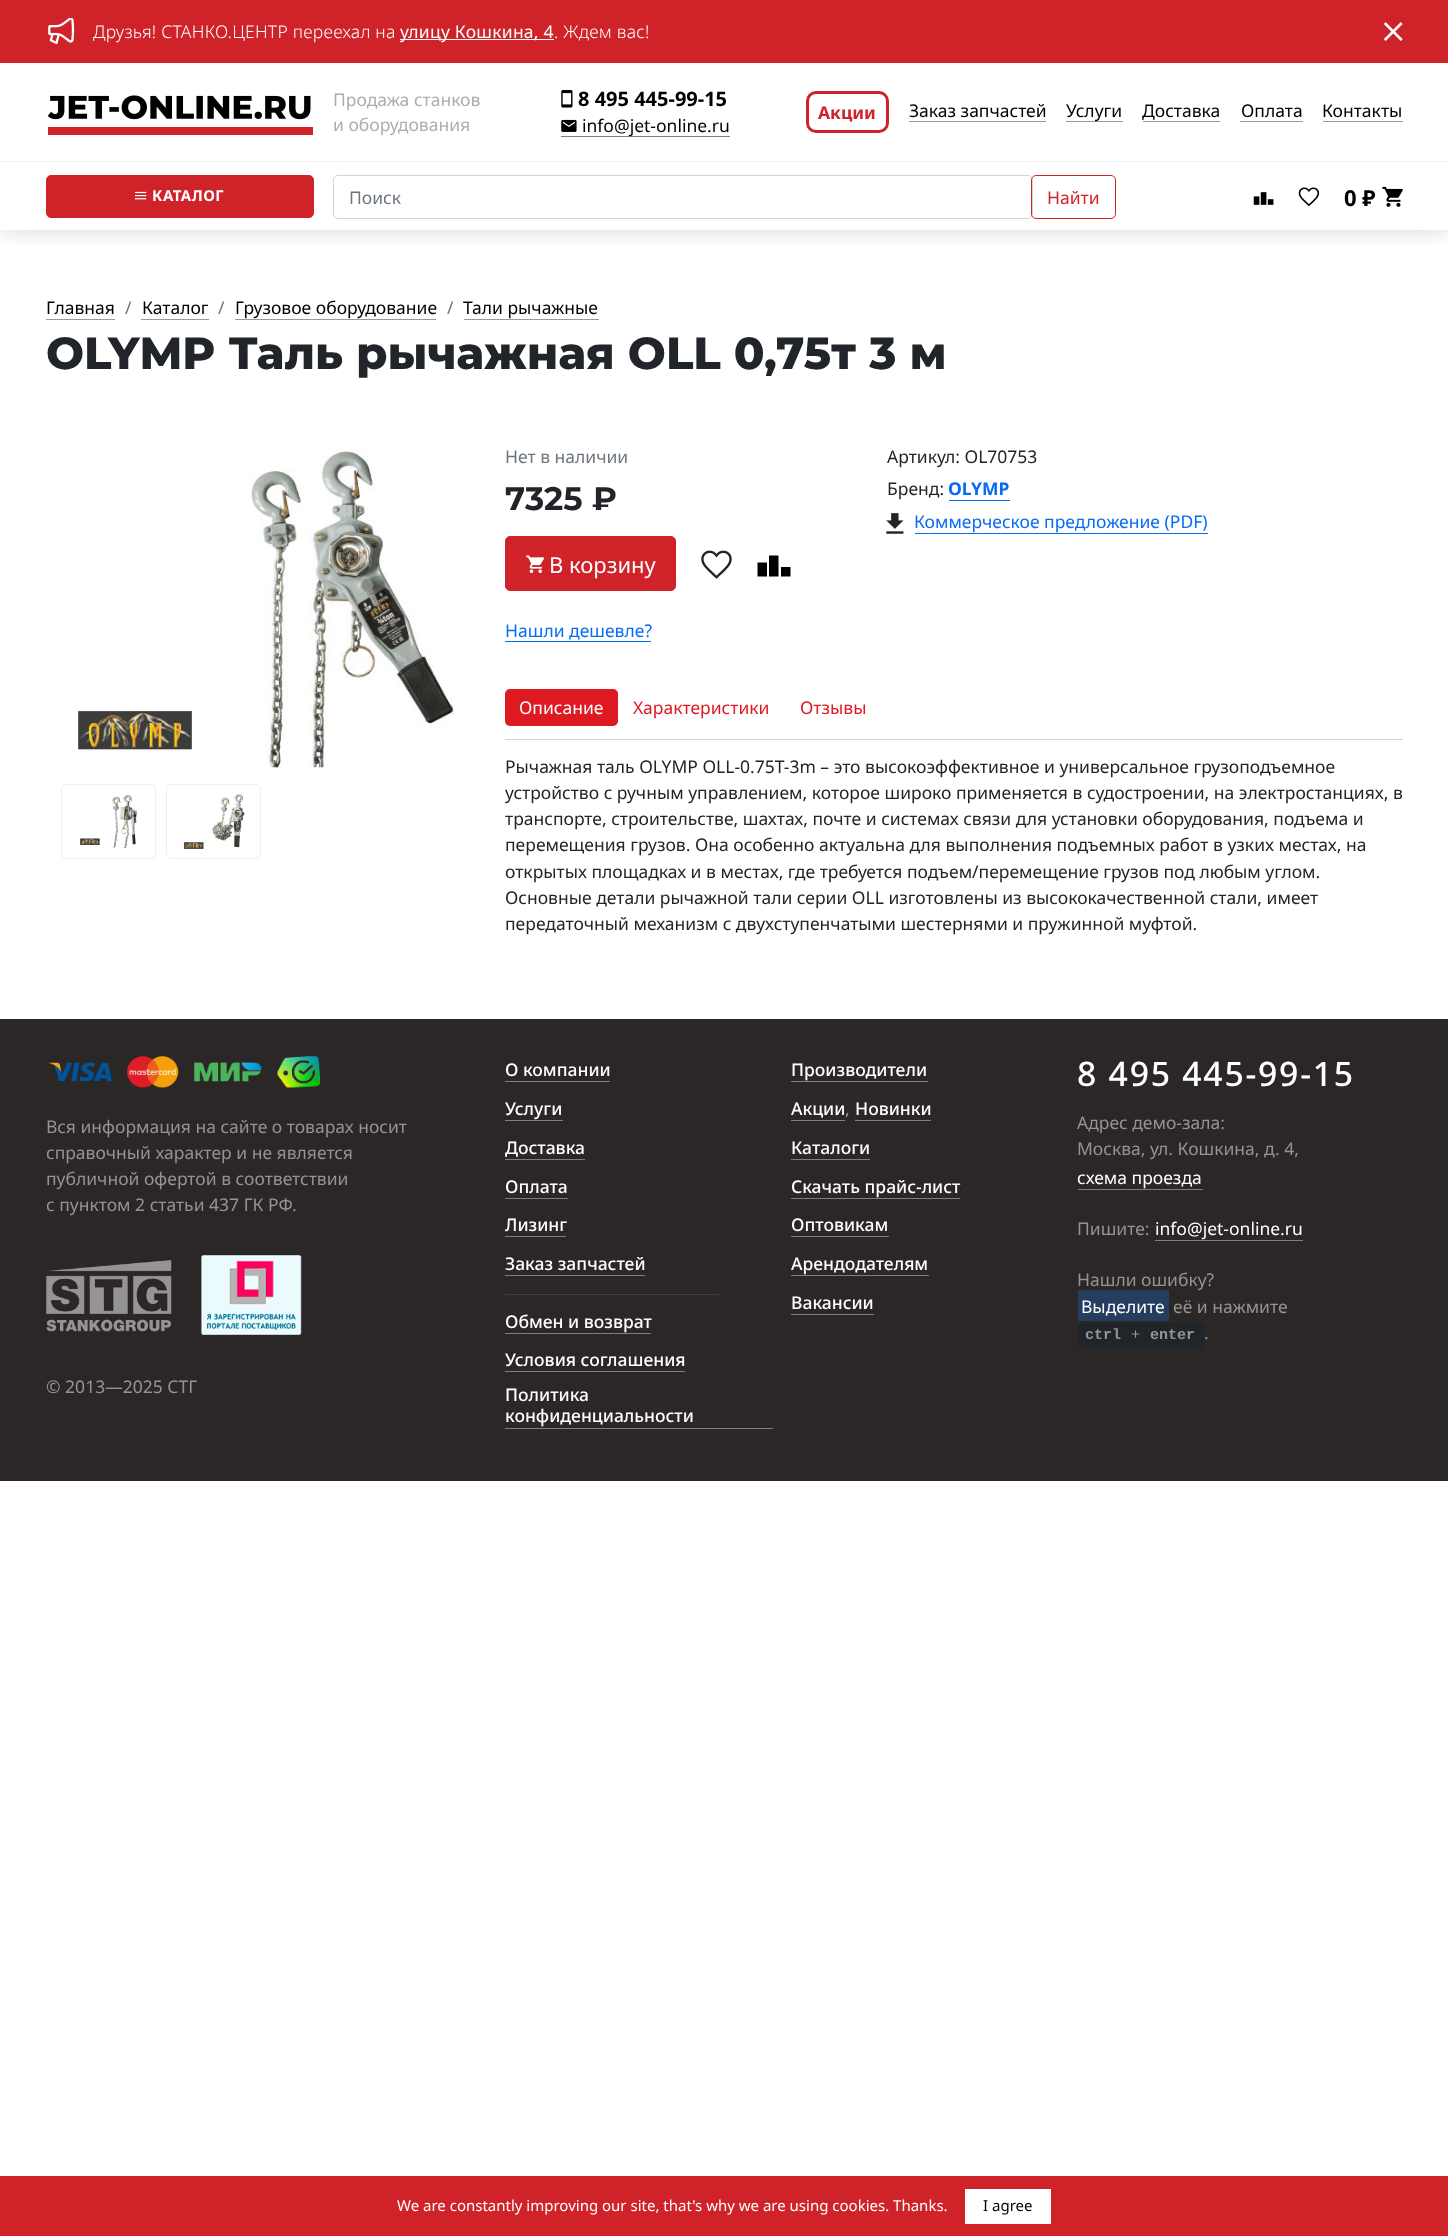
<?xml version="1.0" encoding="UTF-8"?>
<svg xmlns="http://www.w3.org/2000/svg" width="1448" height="2236">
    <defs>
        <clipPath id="clip1"><rect x="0" y="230" width="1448" height="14"/></clipPath>
        <filter id="blur1" x="-50%" y="-200%" width="200%" height="500%"><feGaussianBlur stdDeviation="15.5"/></filter>
    </defs>
    <rect width="100%" height="100%" fill="#FFFFFF"/>
    <g clip-path="url(#clip1)">
        <rect x="-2" y="-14" width="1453" height="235" fill="#000000" fill-opacity="0.3" filter="url(#blur1)"/>
    </g>
    <rect x="0" y="0" width="1448" height="63" fill="#D02229"/>
    <image x="48" y="18" width="27" height="27" href="img_01.png"/>
    <text x="93" y="38" font-family="Noto Sans" font-size="17.5" font-weight="300" letter-spacing="0.25" fill="#FFFFFF">Друзья! СТАНКО.ЦЕНТР переехал на</text>
    <rect x="400" y="39" width="154" height="1" fill="#FFFFFF"/>
    <text x="400" y="38" font-family="Noto Sans" font-size="17.5" letter-spacing="0.25" fill="#FFFFFF">улицу Кошкина, 4</text>
    <text x="554" y="38" font-family="Noto Sans" font-size="17.5" font-weight="300" letter-spacing="0.25" fill="#FFFFFF">. Ждем вас!</text>
    <image x="1383" y="22" width="20" height="19" href="img_02.png"/>
    <rect x="0" y="161" width="1448" height="1" fill="#EFEFEF"/>
    <image x="47" y="95" width="266" height="40" href="img_03.png"/>
    <text font-family="Noto Sans" font-size="17.5" fill="#ADADAD">
        <tspan x="333" y="106">Продажа станков</tspan>
        <tspan x="333" y="131">и оборудования</tspan>
    </text>
    <image x="561" y="90" width="12" height="18" href="img_04.png"/>
    <text x="578" y="106" font-family="Noto Sans" font-size="20" font-weight="700" fill="#000000">8 495 445-99-15</text>
    <rect x="561" y="136" width="169" height="1" fill="#808080"/>
    <image x="561" y="119" width="16" height="13" href="img_05.png"/>
    <text x="582" y="132" font-family="Noto Sans" font-size="17.5" fill="#000000">info@jet-online.ru</text>
    <rect x="807.5" y="92.5" width="80" height="39" rx="8.5" fill="none" stroke="#D02229" stroke-width="3"/>
    <text x="818" y="119" font-family="Noto Sans" font-size="17.5" font-weight="700" fill="#D02229">Акции</text>
    <rect x="909" y="121" width="137" height="1" fill="#999999"/>
    <text x="909" y="117" font-family="Noto Sans" font-size="17.5" fill="#000000">Заказ запчастей</text>
    <rect x="1066" y="121" width="57" height="1" fill="#999999"/>
    <text x="1066" y="117" font-family="Noto Sans" font-size="17.5" fill="#000000">Услуги</text>
    <rect x="1143" y="121" width="77" height="1" fill="#999999"/>
    <text x="1142" y="117" font-family="Noto Sans" font-size="17.5" fill="#000000">Доставка</text>
    <rect x="1240" y="121" width="63" height="1" fill="#999999"/>
    <text x="1241" y="117" font-family="Noto Sans" font-size="17.5" fill="#000000">Оплата</text>
    <rect x="1323" y="121" width="80" height="1" fill="#999999"/>
    <text x="1322" y="117" font-family="Noto Sans" font-size="17.5" fill="#000000">Контакты</text>
    <rect x="46.5" y="175.5" width="267" height="42" rx="4.5" fill="#D02229" stroke="#D02229"/>
    <image x="135" y="191" width="12" height="9" href="img_06.png"/>
    <text x="152" y="201" font-family="Noto Sans" font-size="15" font-weight="700" letter-spacing="0.5" fill="#FFFFFF">КАТАЛОГ</text>
    <rect x="333.5" y="175.5" width="699" height="43" rx="4.5" fill="none" stroke="#CED4DA"/>
    <text x="349" y="204" font-family="Noto Sans" font-size="17.5" fill="#6C757D">Поиск</text>
    <rect x="1031.5" y="175.5" width="84" height="43" rx="4.5" fill="none" stroke="#D02229"/>
    <text x="1047" y="204" font-family="Noto Sans" font-size="17.5" fill="#D02229">Найти</text>
    <image x="1253" y="192" width="21" height="13" href="img_07.png"/>
    <image x="1298" y="187" width="22" height="20" href="img_08.png"/>
    <text x="1344" y="206" font-family="Noto Sans" font-size="22" font-weight="700" fill="#000000">0 ₽</text>
    <image x="1382" y="186" width="21" height="21" href="img_09.png"/>
    <rect x="46" y="319" width="69" height="1" fill="#999999"/>
    <text x="46" y="314" font-family="Noto Sans" font-size="17.5" fill="#000000">Главная</text>
    <text x="125" y="314" font-family="Noto Sans" font-size="17.5" fill="#6C757D">/</text>
    <rect x="141" y="319" width="68" height="1" fill="#999999"/>
    <text x="142" y="314" font-family="Noto Sans" font-size="17.5" fill="#000000">Каталог</text>
    <text x="218" y="314" font-family="Noto Sans" font-size="17.5" fill="#6C757D">/</text>
    <rect x="235" y="319" width="201" height="1" fill="#999999"/>
    <text x="235" y="314" font-family="Noto Sans" font-size="17.5" fill="#000000">Грузовое оборудование</text>
    <text x="447" y="314" font-family="Noto Sans" font-size="17.5" fill="#6C757D">/</text>
    <rect x="464" y="319" width="135" height="1" fill="#999999"/>
    <text x="463" y="314" font-family="Noto Sans" font-size="17.5" fill="#000000">Тали рычажные</text>
    <text x="46" y="369" font-family="Montserrat" font-size="45" font-weight="800" fill="#212529">OLYMP Таль рычажная OLL 0,75т 3 м</text>
    <image x="78" y="450" width="377" height="318" href="img_10.png"/>
    <rect x="61.5" y="784.5" width="94" height="74" rx="4.5" fill="none" stroke="#EFEFEF"/>
    <image x="80" y="795" width="57" height="53" href="img_11.png"/>
    <rect x="166.5" y="784.5" width="94" height="74" rx="4.5" fill="none" stroke="#EFEFEF"/>
    <image x="183" y="794" width="62" height="55" href="img_12.png"/>
    <text x="505" y="463" font-family="Noto Sans" font-size="17.5" fill="#6C757D">Нет в наличии</text>
    <text x="505" y="510" font-family="Montserrat" font-size="32.5" font-weight="700" fill="#212529">7325 ₽</text>
    <rect x="505.5" y="536.5" width="170" height="54" rx="4.5" fill="#D02229" stroke="#D02229"/>
    <image x="526" y="555" width="18" height="18" href="img_13.png"/>
    <text x="549" y="573" font-family="Noto Sans" font-size="22" fill="#FFFFFF">В корзину</text>
    <image x="701" y="550" width="31" height="29" href="img_14.png"/>
    <path d="M 757.5 576.5 V 562.5 H 767 V 576.5 Z M 769 576.5 V 555.5 H 778.5 V 576.5 Z M 781 576.5 V 567 H 790.5 V 576.5 Z" fill="#000000"/>
    <rect x="505" y="641" width="146" height="1" fill="#076BF3"/>
    <text x="505" y="637" font-family="Noto Sans" font-size="17.5" fill="#076BF3">Нашли дешевле?</text>
    <text font-family="Noto Sans" font-size="17.5" fill="#212529">
        <tspan x="887" y="463">Артикул: OL70753</tspan>
        <tspan x="887" y="495">Бренд:</tspan>
    </text>
    <rect x="949" y="500" width="61" height="1" fill="#076BF3"/>
    <text x="948" y="495" font-family="Noto Sans" font-size="17.5" font-weight="700" fill="#076BF3">OLYMP</text>
    <image x="886" y="513" width="18" height="21" href="img_15.png"/>
    <rect x="915" y="533" width="293" height="1" fill="#076BF3"/>
    <text x="914" y="528" font-family="Noto Sans" font-size="17.5" fill="#076BF3">Коммерческое предложение (PDF)</text>
    <rect x="505" y="739" width="898" height="1" fill="#D3D3D3"/>
    <rect x="505" y="689" width="113" height="37" rx="5" fill="#DF1922"/>
    <text x="519" y="714" font-family="Noto Sans" font-size="17.5" fill="#FFFFFF">Описание</text>
    <text x="633" y="714" font-family="Noto Sans" font-size="17.5" fill="#DF1922">Характеристики</text>
    <text x="800" y="714" font-family="Noto Sans" font-size="17.5" fill="#DF1922">Отзывы</text>
    <text font-family="Noto Sans" font-size="17.5" fill="#212529">
        <tspan x="505" y="773">Рычажная таль OLYMP OLL-0.75T-3m – это высокоэффективное и универсальное грузоподъемное</tspan>
        <tspan x="505" y="799">устройство с ручным управлением, которое широко применяется в судостроении, на электростанциях, в</tspan>
        <tspan x="505" y="825">транспорте, строительстве, шахтах, почте и системах связи для установки оборудования, подъема и</tspan>
        <tspan x="505" y="851">перемещения грузов. Она особенно актуальна для выполнения подъемных работ в узких местах, на</tspan>
        <tspan x="505" y="878">открытых площадках и в местах, где требуется подъем/перемещение грузов под любым углом.</tspan>
        <tspan x="505" y="904">Основные детали рычажной тали серии OLL изготовлены из высококачественной стали, имеет</tspan>
        <tspan x="505" y="930">передаточный механизм с двухступенчатыми шестернями и пружинной муфтой.</tspan>
    </text>
    <rect x="0" y="1019" width="1448" height="462" fill="#2A2726"/>
    <image x="48" y="1056" width="214" height="32" href="img_16.png"/>
    <image x="277" y="1056" width="43" height="32" href="img_17.png"/>
    <text font-family="Noto Sans" font-size="17.5" fill="#959393">
        <tspan x="46" y="1133">Вся информация на сайте о товарах носит</tspan>
        <tspan x="46" y="1159">справочный характер и не является</tspan>
        <tspan x="46" y="1185">публичной офертой в соответствии</tspan>
        <tspan x="46" y="1211">с пунктом 2 статьи 437 ГК РФ.</tspan>
    </text>
    <image x="46" y="1260" width="126" height="72" href="img_18.png"/>
    <image x="201" y="1255" width="101" height="80" href="img_19.png"/>
    <text x="46" y="1393" font-family="Noto Sans" font-size="17.5" fill="#959393">© 2013—2025 СТГ</text>
    <rect x="505" y="1081" width="105" height="1" fill="#7F7D7D"/>
    <text x="505" y="1076" font-family="Noto Sans" font-size="17.5" font-weight="500" fill="#FFFFFF">О компании</text>
    <rect x="505" y="1120" width="58" height="1" fill="#7F7D7D"/>
    <text x="505" y="1115" font-family="Noto Sans" font-size="17.5" font-weight="500" fill="#FFFFFF">Услуги</text>
    <rect x="505" y="1159" width="80" height="1" fill="#7F7D7D"/>
    <text x="505" y="1154" font-family="Noto Sans" font-size="17.5" font-weight="500" fill="#FFFFFF">Доставка</text>
    <rect x="505" y="1198" width="63" height="1" fill="#7F7D7D"/>
    <text x="505" y="1193" font-family="Noto Sans" font-size="17.5" font-weight="500" fill="#FFFFFF">Оплата</text>
    <rect x="505" y="1236" width="61" height="1" fill="#7F7D7D"/>
    <text x="505" y="1231" font-family="Noto Sans" font-size="17.5" font-weight="500" fill="#FFFFFF">Лизинг</text>
    <rect x="505" y="1275" width="140" height="1" fill="#7F7D7D"/>
    <text x="505" y="1270" font-family="Noto Sans" font-size="17.5" font-weight="500" fill="#FFFFFF">Заказ запчастей</text>
    <rect x="505" y="1294" width="214" height="1" fill="#3F3D3C"/>
    <rect x="505" y="1333" width="146" height="1" fill="#7F7D7D"/>
    <text x="505" y="1328" font-family="Noto Sans" font-size="17.5" font-weight="500" fill="#FFFFFF">Обмен и возврат</text>
    <rect x="505" y="1371" width="180" height="1" fill="#7F7D7D"/>
    <text x="505" y="1366" font-family="Noto Sans" font-size="17.5" font-weight="500" fill="#FFFFFF">Условия соглашения</text>
    <rect x="505" y="1428" width="268" height="1" fill="#7F7D7D"/>
    <text font-family="Noto Sans" font-size="17.5" font-weight="500" fill="#FFFFFF">
        <tspan x="505" y="1401">Политика</tspan>
        <tspan x="505" y="1422">конфиденциальности</tspan>
    </text>
    <rect x="791" y="1081" width="137" height="1" fill="#7F7D7D"/>
    <text x="791" y="1076" font-family="Noto Sans" font-size="17.5" font-weight="500" fill="#FFFFFF">Производители</text>
    <rect x="791" y="1120" width="54" height="1" fill="#7F7D7D"/>
    <text x="791" y="1115" font-family="Noto Sans" font-size="17.5" font-weight="500" fill="#FFFFFF">Акции</text>
    <text x="845" y="1115" font-family="Noto Sans" font-size="17.5" fill="#959393">,</text>
    <rect x="855" y="1120" width="76" height="1" fill="#7F7D7D"/>
    <text x="855" y="1115" font-family="Noto Sans" font-size="17.5" font-weight="500" fill="#FFFFFF">Новинки</text>
    <rect x="791" y="1159" width="79" height="1" fill="#7F7D7D"/>
    <text x="791" y="1154" font-family="Noto Sans" font-size="17.5" font-weight="500" fill="#FFFFFF">Каталоги</text>
    <rect x="791" y="1198" width="169" height="1" fill="#7F7D7D"/>
    <text x="791" y="1193" font-family="Noto Sans" font-size="17.5" font-weight="500" fill="#FFFFFF">Скачать прайс-лист</text>
    <rect x="791" y="1236" width="98" height="1" fill="#7F7D7D"/>
    <text x="791" y="1231" font-family="Noto Sans" font-size="17.5" font-weight="500" fill="#FFFFFF">Оптовикам</text>
    <rect x="791" y="1275" width="138" height="1" fill="#7F7D7D"/>
    <text x="791" y="1270" font-family="Noto Sans" font-size="17.5" font-weight="500" fill="#FFFFFF">Арендодателям</text>
    <rect x="791" y="1314" width="83" height="1" fill="#7F7D7D"/>
    <text x="791" y="1309" font-family="Noto Sans" font-size="17.5" font-weight="500" fill="#FFFFFF">Вакансии</text>
    <text x="1077" y="1086" font-family="Noto Sans" font-size="33.75" font-weight="500" letter-spacing="1.75" fill="#FFFFFF">8 495 445-99-15</text>
    <text font-family="Noto Sans" font-size="17.5" fill="#959393">
        <tspan x="1077" y="1129">Адрес демо-зала:</tspan>
        <tspan x="1077" y="1155">Москва, ул. Кошкина, д. 4,</tspan>
    </text>
    <rect x="1078" y="1189" width="125" height="1" fill="#7F7D7D"/>
    <text x="1077" y="1184" font-family="Noto Sans" font-size="17.5" fill="#FFFFFF">схема проезда</text>
    <text x="1077" y="1235" font-family="Noto Sans" font-size="17.5" fill="#959393">Пишите:</text>
    <rect x="1155" y="1240" width="148" height="1" fill="#7F7D7D"/>
    <text x="1155" y="1235" font-family="Noto Sans" font-size="17.5" fill="#FFFFFF">info@jet-online.ru</text>
    <text x="1077" y="1286" font-family="Noto Sans" font-size="17.5" fill="#959393">Нашли ошибку?</text>
    <rect x="1078" y="1290" width="91" height="31" fill="#253E5F"/>
    <text x="1081" y="1313" font-family="Noto Sans" font-size="17.5" fill="#FFFFFF">Выделите</text>
    <text x="1173" y="1313" font-family="Noto Sans" font-size="17.5" fill="#959393">её и нажмите</text>
    <path d="M 1083 1323 H 1123 V 1348 H 1083 C 1080 1348 1078 1346 1078 1343 V 1328 C 1078 1325 1080 1323 1083 1323 Z" fill="#212529"/>
    <text x="1085" y="1339" font-family="Liberation Mono" font-size="15" font-weight="700" fill="#959393">ctrl</text>
    <rect x="1123" y="1323" width="27" height="25" fill="#212529"/>
    <text x="1131" y="1339" font-family="Liberation Mono" font-size="15" fill="#959393">+</text>
    <path d="M 1150 1323 H 1199 C 1202 1323 1204 1325 1204 1328 V 1343 C 1204 1346 1202 1348 1199 1348 H 1150 Z" fill="#212529"/>
    <text x="1150" y="1339" font-family="Liberation Mono" font-size="15" font-weight="700" fill="#959393">enter</text>
    <text x="1204" y="1339" font-family="Noto Sans" font-size="17.5" fill="#959393">.</text>
    <rect x="0" y="2176" width="1448" height="60" fill="#D02229"/>
    <text x="397" y="2211" font-family="Noto Sans" font-size="15" fill="#FFFFFF">We are constantly improving our site, that's why we are using cookies. Thanks.</text>
    <rect x="965" y="2189" width="86" height="35" fill="#FFFFFF"/>
    <text x="983" y="2211" font-family="Noto Sans" font-size="15" fill="#000000">I agree</text>
</svg>
